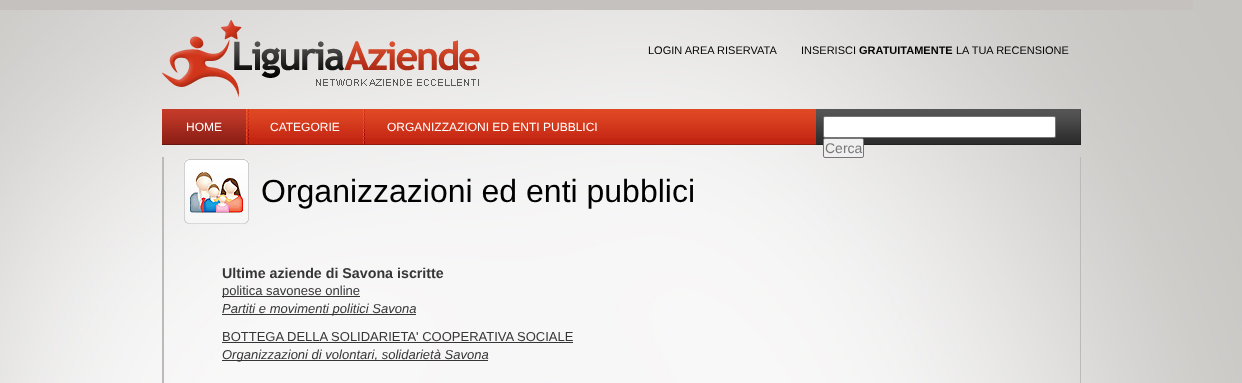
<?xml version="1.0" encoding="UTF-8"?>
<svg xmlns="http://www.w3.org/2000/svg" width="1242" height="383">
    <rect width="100%" height="100%" fill="#FFFFFF"/>
    <image x="0" y="0" width="1242" height="383" href="img_01.png"/>
    <rect x="0" y="0" width="1193" height="10" fill="#C4C1BE"/>
    <image x="162" y="20" width="318" height="77" href="img_02.png"/>
    <text x="648" y="54" font-family="Liberation Sans" font-size="11" fill="#000000">LOGIN AREA RISERVATA</text>
    <text x="801" y="54" font-family="Liberation Sans" font-size="11" fill="#000000">INSERISCI</text>
    <text x="859" y="54" font-family="Liberation Sans" font-size="11" font-weight="700" fill="#000000">GRATUITAMENTE</text>
    <text x="956" y="54" font-family="Liberation Sans" font-size="11" fill="#000000">LA TUA RECENSIONE</text>
    <rect x="249" y="138" width="567" height="6" fill="#C32513"/>
    <image x="249" y="109" width="567" height="29" href="img_03.png"/>
    <rect x="246" y="144" width="570" height="1" fill="#911C0D"/>
    <image x="162" y="109" width="84" height="36" href="img_04.png"/>
    <text x="186" y="131" font-family="Liberation Sans" font-size="12" fill="#FFFFFF">HOME</text>
    <image x="246" y="109" width="3" height="35" href="img_05.png"/>
    <text x="270" y="131" font-family="Liberation Sans" font-size="12" fill="#FFFFFF">CATEGORIE</text>
    <image x="363" y="109" width="2" height="35" href="img_06.png"/>
    <text x="387" y="131" font-family="Liberation Sans" font-size="12" fill="#FFFFFF">ORGANIZZAZIONI ED ENTI PUBBLICI</text>
    <image x="816" y="109" width="265" height="36" href="img_07.png"/>
    <rect x="823.5" y="116.5" width="232" height="21" rx="1.5" fill="#FFFFFF" stroke="#767676"/>
    <rect x="823.5" y="138.5" width="40" height="19" rx="1.5" fill="#EFEFEF" stroke="#767676"/>
    <text x="825" y="153" font-family="Liberation Sans" font-size="14" fill="#777777">Cerca</text>
    <rect x="162" y="157" width="2" height="226" fill="#BBBAB9"/>
    <rect x="1080" y="157" width="1" height="226" fill="#BBBAB9"/>
    <image x="184" y="159" width="65" height="65" href="img_08.png"/>
    <text x="261" y="202" font-family="Liberation Sans" font-size="32" fill="#000000">Organizzazioni ed enti pubblici</text>
    <text x="222" y="278" font-family="Liberation Sans" font-size="14.25" font-weight="700" fill="#363636">Ultime aziende di Savona iscritte</text>
    <rect x="222" y="296" width="138" height="1" fill="#363636"/>
    <text x="222" y="295" font-family="Liberation Sans" font-size="13" fill="#363636">politica savonese online</text>
    <rect x="222" y="314" width="194" height="1" fill="#363636"/>
    <text x="222" y="313" font-family="Liberation Sans" font-size="13" font-style="italic" fill="#363636">Partiti e movimenti politici Savona</text>
    <text x="222" y="341" font-family="Liberation Sans" font-size="13" fill="#363636">BOTTEGA DELLA SOLIDARIETA' COOPERATIVA SOCIALE</text>
    <rect x="222" y="342" width="351" height="1" fill="#363636"/>
    <rect x="222" y="360" width="266" height="1" fill="#363636"/>
    <text x="222" y="359" font-family="Liberation Sans" font-size="13" font-style="italic" fill="#363636">Organizzazioni di volontari, solidarietà Savona</text>
</svg>
